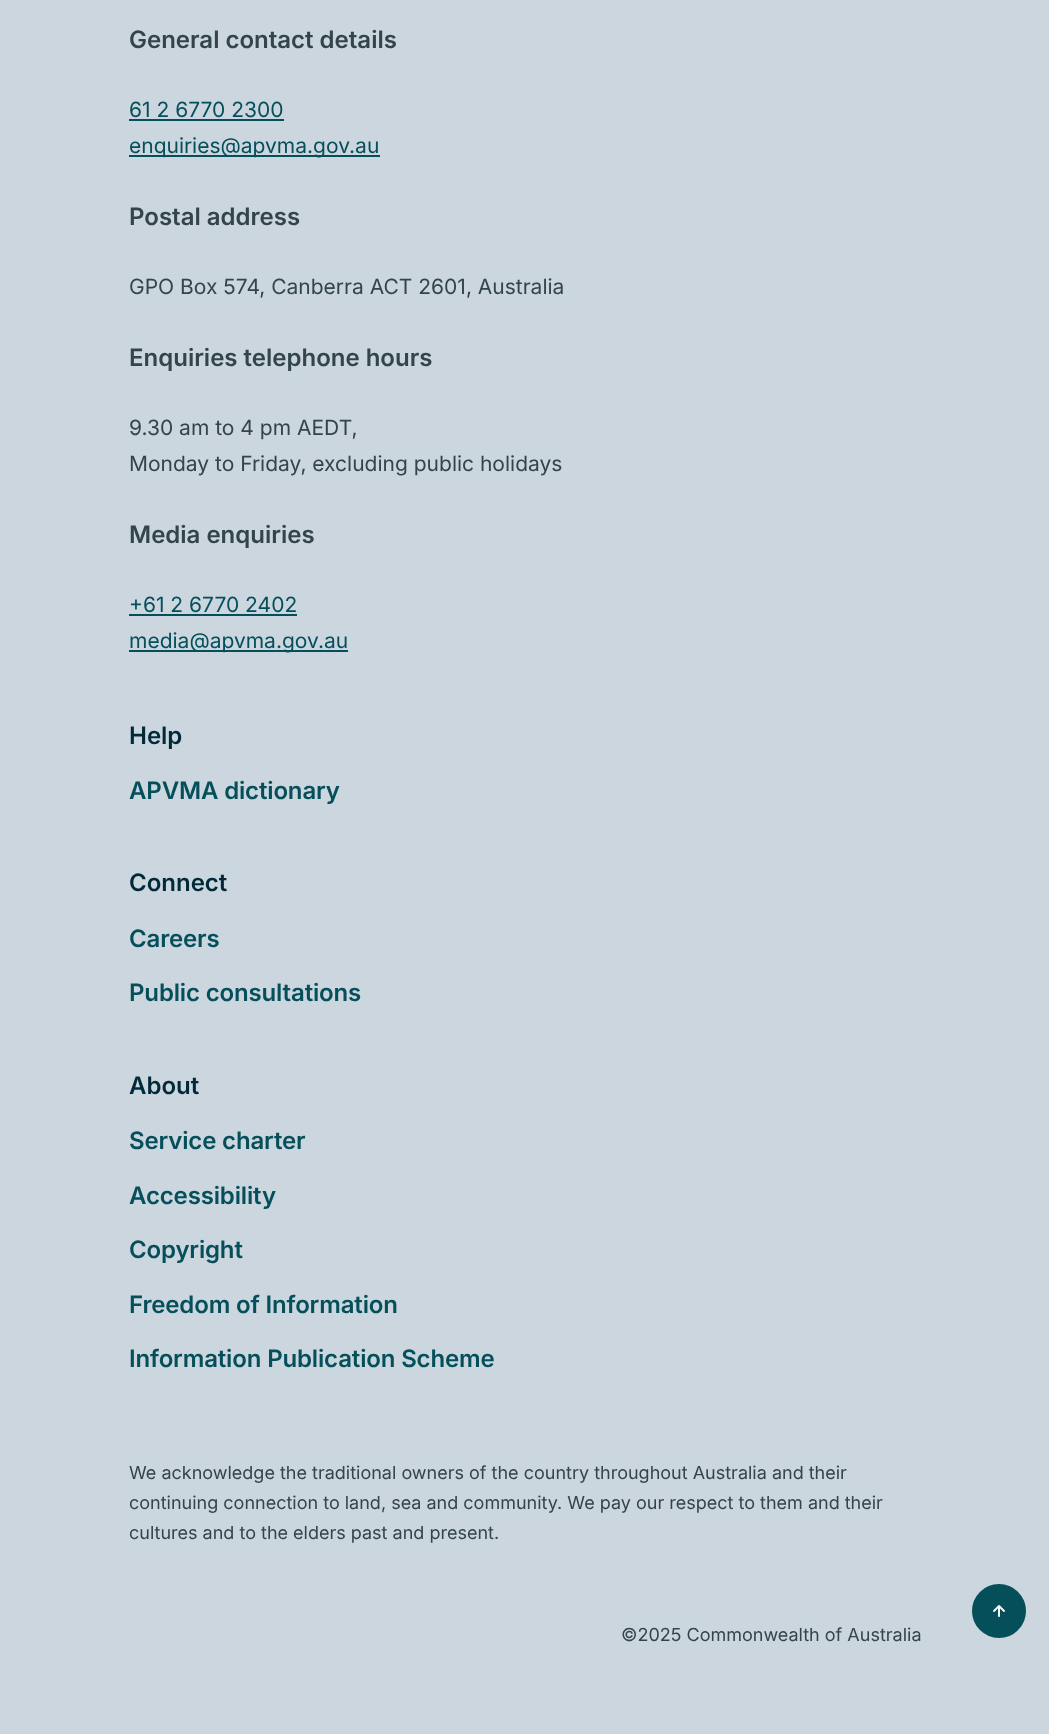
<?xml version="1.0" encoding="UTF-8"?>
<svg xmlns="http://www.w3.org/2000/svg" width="1049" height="1734">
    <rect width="100%" height="100%" fill="#CBD6DF"/>
    <text x="129" y="48" font-family="Inter" font-size="24" font-weight="600" fill="#33444A">General contact details</text>
    <text x="129" y="117" font-family="Inter" font-size="21" fill="#054F5A">61 2 6770 2300</text>
    <rect x="129" y="119" width="155" height="2" fill="#054F5A"/>
    <rect x="129" y="155" width="251" height="2" fill="#054F5A"/>
    <text x="129" y="153" font-family="Inter" font-size="21" fill="#054F5A">enquiries@apvma.gov.au</text>
    <text x="129" y="225" font-family="Inter" font-size="24" font-weight="600" fill="#33444A">Postal address</text>
    <text x="129" y="294" font-family="Inter" font-size="21" fill="#33444A">GPO Box 574, Canberra ACT 2601, Australia</text>
    <text x="129" y="366" font-family="Inter" font-size="24" font-weight="600" fill="#33444A">Enquiries telephone hours</text>
    <text font-family="Inter" font-size="21" fill="#33444A">
        <tspan x="129" y="435">9.30 am to 4 pm AEDT,</tspan>
        <tspan x="129" y="471">Monday to Friday, excluding public holidays</tspan>
    </text>
    <text x="129" y="543" font-family="Inter" font-size="24" font-weight="600" fill="#33444A">Media enquiries</text>
    <text x="129" y="612" font-family="Inter" font-size="21" fill="#054F5A">+61 2 6770 2402</text>
    <rect x="129" y="614" width="168" height="2" fill="#054F5A"/>
    <rect x="129" y="650" width="219" height="2" fill="#054F5A"/>
    <text x="129" y="648" font-family="Inter" font-size="21" fill="#054F5A">media@apvma.gov.au</text>
    <text x="129" y="744" font-family="Inter" font-size="24" font-weight="600" fill="#002A39">Help</text>
    <text x="129" y="799" font-family="Inter" font-size="24" font-weight="600" letter-spacing="-0.15" fill="#054F5A">APVMA dictionary</text>
    <text x="129" y="891" font-family="Inter" font-size="24" font-weight="600" fill="#002A39">Connect</text>
    <text x="129" y="947" font-family="Inter" font-size="24" font-weight="600" letter-spacing="-0.15" fill="#054F5A">Careers</text>
    <text x="129" y="1001" font-family="Inter" font-size="24" font-weight="600" letter-spacing="-0.15" fill="#054F5A">Public consultations</text>
    <text x="129" y="1094" font-family="Inter" font-size="24" font-weight="600" fill="#002A39">About</text>
    <text x="129" y="1149" font-family="Inter" font-size="24" font-weight="600" letter-spacing="-0.15" fill="#054F5A">Service charter</text>
    <text x="129" y="1204" font-family="Inter" font-size="24" font-weight="600" letter-spacing="-0.15" fill="#054F5A">Accessibility</text>
    <text x="129" y="1258" font-family="Inter" font-size="24" font-weight="600" letter-spacing="-0.15" fill="#054F5A">Copyright</text>
    <text x="129" y="1313" font-family="Inter" font-size="24" font-weight="600" letter-spacing="-0.15" fill="#054F5A">Freedom of Information</text>
    <text x="129" y="1367" font-family="Inter" font-size="24" font-weight="600" letter-spacing="-0.15" fill="#054F5A">Information Publication Scheme</text>
    <text font-family="Inter" font-size="18" fill="#33444A">
        <tspan x="129" y="1479">We acknowledge the traditional owners of the country throughout Australia and their</tspan>
        <tspan x="129" y="1509">continuing connection to land, sea and community. We pay our respect to them and their</tspan>
        <tspan x="129" y="1539">cultures and to the elders past and present.</tspan>
    </text>
    <text x="621" y="1641" font-family="Inter" font-size="18" fill="#33444A">©2025 Commonwealth of Australia</text>
    <circle cx="999" cy="1611" r="25.5" fill="#054F5A" stroke="#054F5A" stroke-width="3"/>
    <image x="993" y="1605" width="12" height="12" href="img_01.png"/>
</svg>
